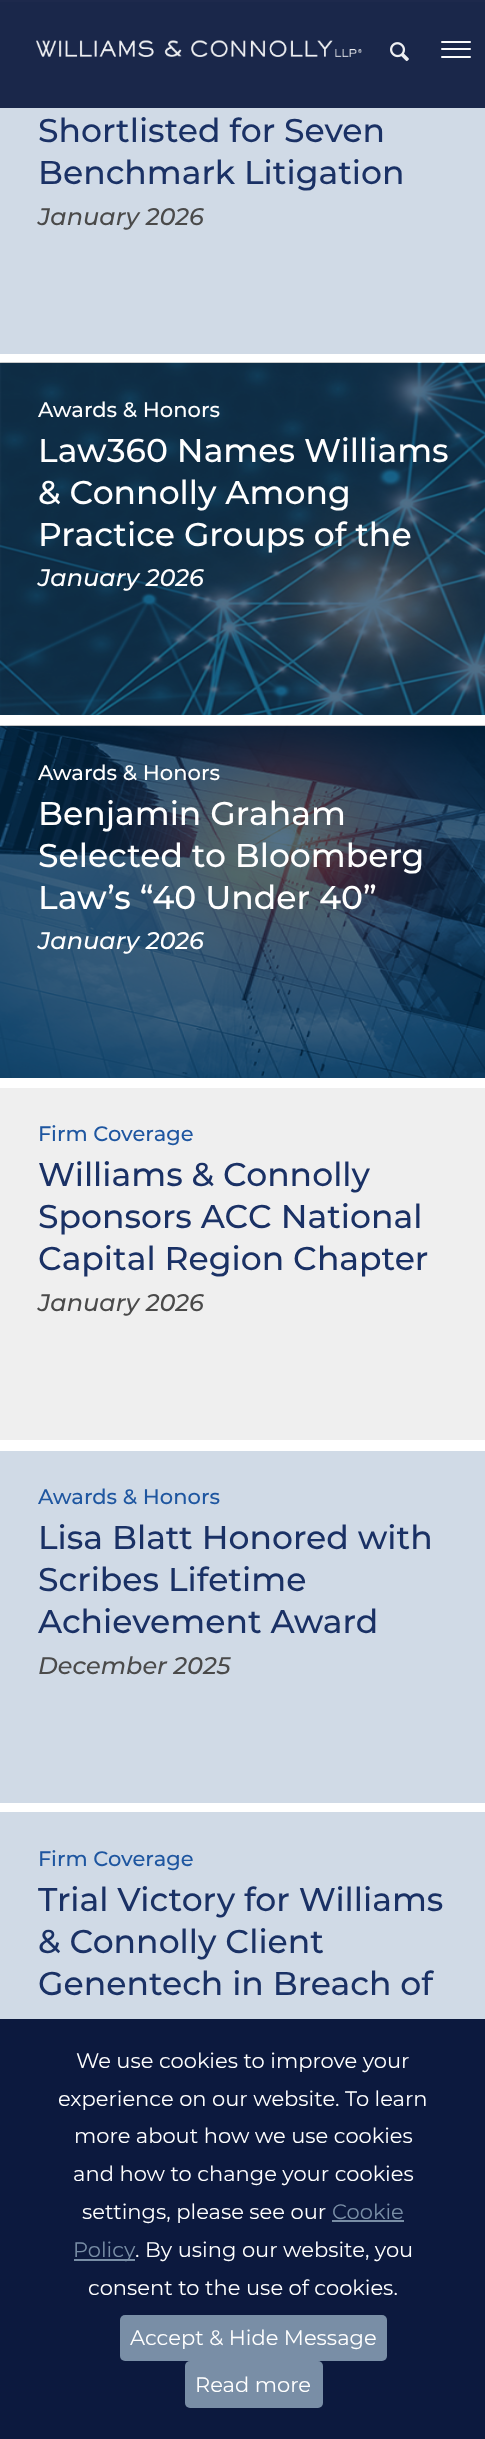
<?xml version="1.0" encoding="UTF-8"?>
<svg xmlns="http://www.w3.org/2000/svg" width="485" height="2439">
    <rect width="100%" height="100%" fill="#FFFFFF"/>
    <rect x="0" y="0" width="485" height="2" fill="#1D294C"/>
    <rect x="0" y="2" width="485" height="106" fill="#1A274A"/>
    <image x="36" y="40" width="326" height="17" href="img_01.png"/>
    <image x="390" y="42" width="19" height="20" href="img_02.png"/>
    <rect x="441" y="41" width="30" height="2" rx="1" fill="#FCFCFD"/>
    <rect x="441" y="48" width="30" height="2" rx="1" fill="#FCFCFD"/>
    <rect x="441" y="56" width="30" height="2" rx="1" fill="#FCFCFD"/>
    <rect x="0" y="108" width="485" height="246" fill="#D0DAE6"/>
    <text font-family="Montserrat" font-size="33" font-weight="500" fill="#1A3165">
        <tspan x="38" y="142">Shortlisted for Seven</tspan>
        <tspan x="38" y="184">Benchmark Litigation</tspan>
    </text>
    <text x="38" y="225" font-family="Montserrat" font-size="24" font-weight="500" font-style="italic" fill="#4A4A4A">January 2026</text>
    <image x="0" y="362" width="485" height="353" href="img_03.png"/>
    <text x="38" y="417" font-family="Montserrat" font-size="21" font-weight="500" fill="#FFFFFF">Awards &amp; Honors</text>
    <text font-family="Montserrat" font-size="33" font-weight="500" fill="#FFFFFF">
        <tspan x="38" y="462">Law360 Names Williams</tspan>
        <tspan x="38" y="504">&amp; Connolly Among</tspan>
        <tspan x="38" y="546">Practice Groups of the</tspan>
    </text>
    <text x="38" y="586" font-family="Montserrat" font-size="24" font-weight="500" font-style="italic" fill="#FFFFFF">January 2026</text>
    <image x="0" y="725" width="485" height="353" href="img_04.png"/>
    <text x="38" y="780" font-family="Montserrat" font-size="21" font-weight="500" fill="#FFFFFF">Awards &amp; Honors</text>
    <text font-family="Montserrat" font-size="33" font-weight="500" fill="#FFFFFF">
        <tspan x="38" y="825">Benjamin Graham</tspan>
        <tspan x="38" y="867">Selected to Bloomberg</tspan>
        <tspan x="38" y="909">Law’s “40 Under 40”</tspan>
    </text>
    <text x="38" y="949" font-family="Montserrat" font-size="24" font-weight="500" font-style="italic" fill="#FFFFFF">January 2026</text>
    <rect x="0" y="1088" width="485" height="352" fill="#EFEFEF"/>
    <text x="38" y="1141" font-family="Montserrat" font-size="21" font-weight="500" fill="#1E56A0">Firm Coverage</text>
    <text font-family="Montserrat" font-size="33" font-weight="500" fill="#1A3165">
        <tspan x="38" y="1186">Williams &amp; Connolly</tspan>
        <tspan x="38" y="1228">Sponsors ACC National</tspan>
        <tspan x="38" y="1270">Capital Region Chapter</tspan>
    </text>
    <text x="38" y="1311" font-family="Montserrat" font-size="24" font-weight="500" font-style="italic" fill="#4A4A4A">January 2026</text>
    <rect x="0" y="1451" width="485" height="352" fill="#D0DAE6"/>
    <text x="38" y="1504" font-family="Montserrat" font-size="21" font-weight="500" fill="#1E56A0">Awards &amp; Honors</text>
    <text font-family="Montserrat" font-size="33" font-weight="500" fill="#1A3165">
        <tspan x="38" y="1549">Lisa Blatt Honored with</tspan>
        <tspan x="38" y="1591">Scribes Lifetime</tspan>
        <tspan x="38" y="1633">Achievement Award</tspan>
    </text>
    <text x="38" y="1674" font-family="Montserrat" font-size="24" font-weight="500" font-style="italic" fill="#4A4A4A">December 2025</text>
    <rect x="0" y="1812" width="485" height="207" fill="#D0DAE6"/>
    <text x="38" y="1866" font-family="Montserrat" font-size="21" font-weight="500" fill="#1E56A0">Firm Coverage</text>
    <text font-family="Montserrat" font-size="33" font-weight="500" fill="#1A3165">
        <tspan x="38" y="1911">Trial Victory for Williams</tspan>
        <tspan x="38" y="1953">&amp; Connolly Client</tspan>
        <tspan x="38" y="1995">Genentech in Breach of</tspan>
    </text>
    <rect x="0" y="2019" width="485" height="420" fill="#0C193E"/>
    <text x="76" y="2068" font-family="Montserrat" font-size="21" fill="#FFFFFF">We use cookies to improve your</text>
    <text x="58" y="2106" font-family="Montserrat" font-size="21" fill="#FFFFFF">experience on our website. To learn</text>
    <text x="74" y="2143" font-family="Montserrat" font-size="21" fill="#FFFFFF">more about how we use cookies</text>
    <text x="73" y="2181" font-family="Montserrat" font-size="21" fill="#FFFFFF">and how to change your cookies</text>
    <text x="82" y="2219" font-family="Montserrat" font-size="21" fill="#FFFFFF">settings, please see our</text>
    <text x="332" y="2219" font-family="Montserrat" font-size="21" fill="#798EA6">Cookie</text>
    <rect x="332" y="2220" width="72" height="2" fill="#798EA6"/>
    <rect x="74" y="2259" width="61" height="2" fill="#798EA6"/>
    <text x="73" y="2257" font-family="Montserrat" font-size="21" fill="#798EA6">Policy</text>
    <text x="135" y="2257" font-family="Montserrat" font-size="21" fill="#FFFFFF">. By using our website, you</text>
    <text x="88" y="2295" font-family="Montserrat" font-size="21" fill="#FFFFFF">consent to the use of cookies.</text>
    <rect x="120" y="2315" width="267" height="46" rx="5" fill="#798EA6"/>
    <text x="130" y="2345" font-family="Montserrat" font-size="21" fill="#FFFFFF">Accept &amp; Hide Message</text>
    <rect x="185" y="2361" width="138" height="47" rx="5" fill="#798EA6"/>
    <text x="195" y="2392" font-family="Montserrat" font-size="21" fill="#FFFFFF">Read more</text>
</svg>
